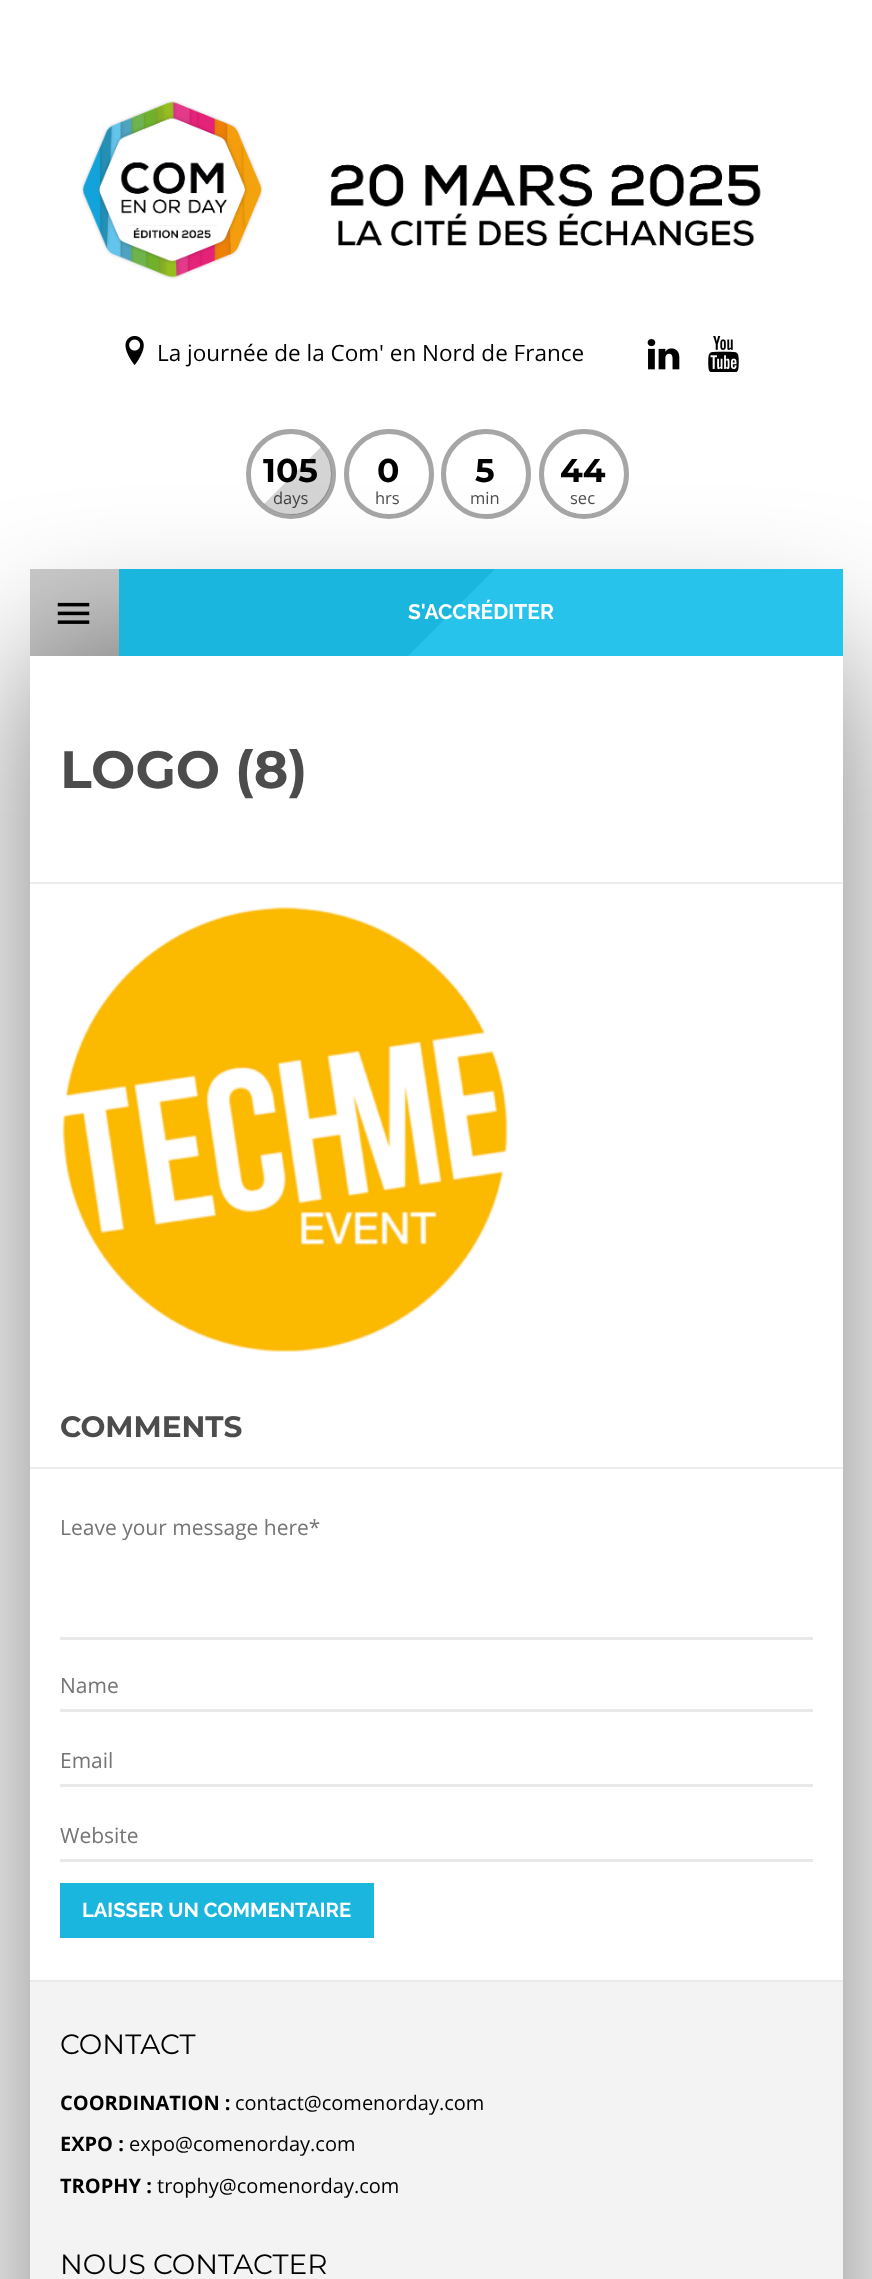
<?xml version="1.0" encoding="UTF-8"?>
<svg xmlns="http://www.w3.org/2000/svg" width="872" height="2279">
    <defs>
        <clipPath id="clip1"><path d="M 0 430 H 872 V 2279 H 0 Z M 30 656 H 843 V 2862 H 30 Z" clip-rule="evenodd"/></clipPath>
        <filter id="blur1" x="-50%" y="-200%" width="200%" height="500%"><feGaussianBlur stdDeviation="75"/></filter>
        <clipPath id="clip2"><rect x="408" y="569" width="435" height="87"/></clipPath>
    </defs>
    <rect width="100%" height="100%" fill="#FFFFFF"/>
    <image x="81" y="100" width="680" height="179" href="img_01.png"/>
    <image x="125" y="335" width="19" height="30" href="img_02.png"/>
    <text x="157" y="361" font-family="Open Sans" font-size="22.5" fill="#000000">La journée de la Com' en Nord de France</text>
    <image x="647" y="339" width="33" height="31" href="img_03.png"/>
    <image x="708" y="336" width="31" height="36" href="img_04.png"/>
    <g clip-path="url(#clip1)">
        <rect x="30" y="656" width="813" height="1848" fill="#000000" fill-opacity="0.5" filter="url(#blur1)"/>
    </g>
    <circle cx="291" cy="474" r="42.5" fill="none" stroke="#000000" stroke-opacity="0.35" stroke-width="5"/>
    <text x="263" y="482" font-family="Montserrat" font-size="33" font-weight="700" fill="#000000">105</text>
    <path d="M 321 447 C 336 463 335 488 320 503 C 305 518 280 519 264 504 Z" fill="#000000" fill-opacity="0.17"/>
    <text x="273" y="504" font-family="Open Sans" font-size="16.5" fill="#3F3F3F">days</text>
    <circle cx="389" cy="474" r="42.5" fill="none" stroke="#000000" stroke-opacity="0.35" stroke-width="5"/>
    <text x="377" y="482" font-family="Montserrat" font-size="33" font-weight="700" fill="#000000">0</text>
    <text x="375" y="504" font-family="Open Sans" font-size="16.5" fill="#4C4C4C">hrs</text>
    <circle cx="486" cy="474" r="42.5" fill="none" stroke="#000000" stroke-opacity="0.35" stroke-width="5"/>
    <text x="475" y="482" font-family="Montserrat" font-size="33" font-weight="700" fill="#000000">5</text>
    <text x="470" y="504" font-family="Open Sans" font-size="16.5" fill="#4C4C4C">min</text>
    <circle cx="584" cy="474" r="42.5" fill="none" stroke="#000000" stroke-opacity="0.35" stroke-width="5"/>
    <text x="560" y="482" font-family="Montserrat" font-size="33" font-weight="700" fill="#000000">44</text>
    <text x="570" y="504" font-family="Open Sans" font-size="16.5" fill="#4C4C4C">sec</text>
    <rect x="30" y="569" width="89" height="87" fill="#000000" fill-opacity="0.2"/>
    <image x="57" y="602" width="33" height="22" href="img_05.png"/>
    <rect x="119" y="569" width="376" height="87" fill="#1AB6DE"/>
    <g clip-path="url(#clip2)">
        <path d="M 408 656 L 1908 -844 V 656 Z" fill="#28C3EB"/>
    </g>
    <text x="408" y="619" font-family="Raleway" font-size="21" font-weight="700" fill="#FFFFFF">S'ACCRÉDITER</text>
    <rect x="30" y="882" width="813" height="2" fill="#EDEDED"/>
    <text x="60" y="788" font-family="Montserrat" font-size="52.5" font-weight="700" fill="#4C4C4C">LOGO (8)</text>
    <image x="62" y="907" width="446" height="445" href="img_06.png"/>
    <rect x="30" y="1467" width="813" height="2" fill="#EDEDED"/>
    <text x="60" y="1437" font-family="Montserrat" font-size="29.5" font-weight="700" fill="#4C4C4C">COMMENTS</text>
    <rect x="60" y="1637" width="753" height="3" fill="#E9E9E9"/>
    <text x="60" y="1535" font-family="Open Sans" font-size="21" fill="#757575">Leave your message here*</text>
    <rect x="60" y="1709" width="753" height="3" fill="#E9E9E9"/>
    <text x="60" y="1693" font-family="Open Sans" font-size="21" fill="#757575">Name</text>
    <rect x="60" y="1784" width="753" height="3" fill="#E9E9E9"/>
    <text x="60" y="1768" font-family="Open Sans" font-size="21" fill="#757575">Email</text>
    <rect x="60" y="1859" width="753" height="3" fill="#E9E9E9"/>
    <text x="60" y="1843" font-family="Open Sans" font-size="21" fill="#757575">Website</text>
    <rect x="60" y="1883" width="314" height="55" fill="#1AB6DE"/>
    <text x="82" y="1917" font-family="Raleway" font-size="20.2" font-weight="700" fill="#FFFFFF">LAISSER UN COMMENTAIRE</text>
    <rect x="30" y="1982" width="813" height="297" fill="#F3F3F3"/>
    <rect x="30" y="1980" width="813" height="2" fill="#E9E9E9"/>
    <text x="60" y="2054" font-family="Montserrat" font-size="28" fill="#000000">CONTACT</text>
    <text x="60" y="2110" font-family="Open Sans" font-size="20" font-weight="700" fill="#000000">COORDINATION :</text>
    <text x="235" y="2110" font-family="Open Sans" font-size="20" fill="#000000">contact@comenorday.com</text>
    <text x="60" y="2151" font-family="Open Sans" font-size="20" font-weight="700" fill="#000000">EXPO :</text>
    <text x="129" y="2151" font-family="Open Sans" font-size="20" fill="#000000">expo@comenorday.com</text>
    <text x="60" y="2193" font-family="Open Sans" font-size="20" font-weight="700" fill="#000000">TROPHY :</text>
    <text x="157" y="2193" font-family="Open Sans" font-size="20" fill="#000000">trophy@comenorday.com</text>
    <text x="60" y="2274" font-family="Montserrat" font-size="28" fill="#000000">NOUS CONTACTER</text>
</svg>
